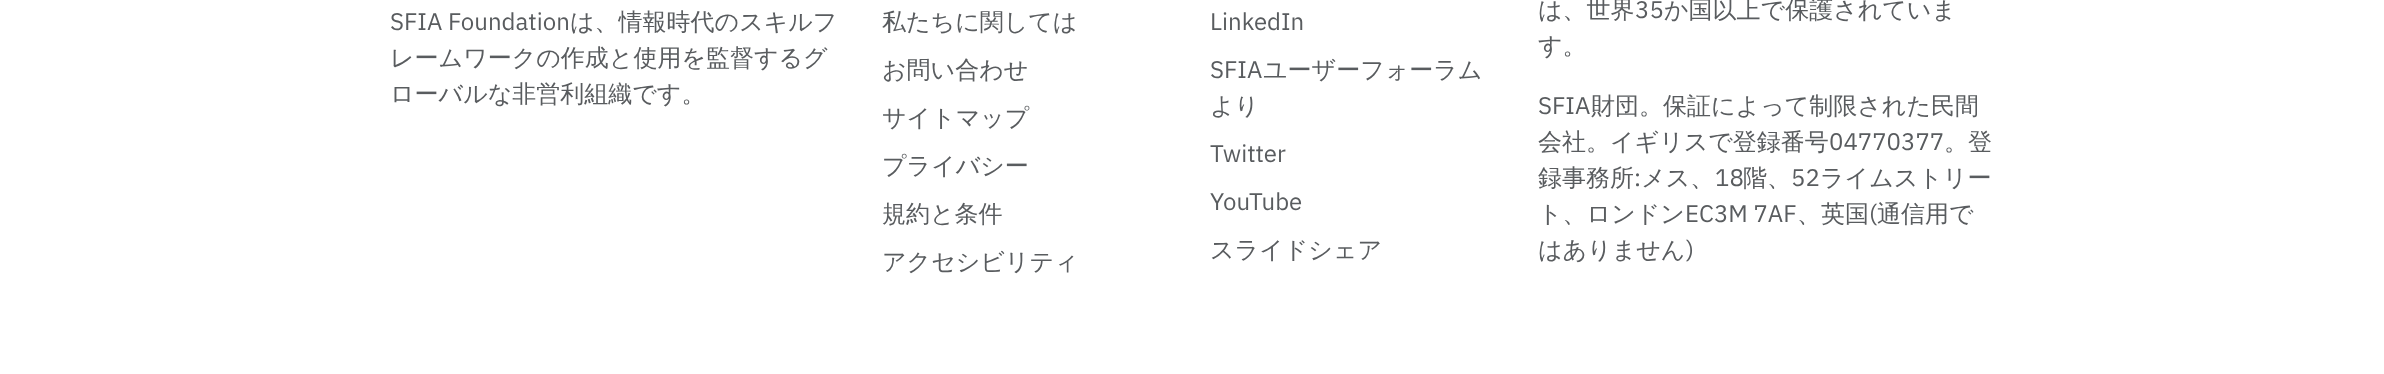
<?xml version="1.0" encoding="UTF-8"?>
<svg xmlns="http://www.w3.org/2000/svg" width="2384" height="374">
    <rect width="100%" height="100%" fill="#FFFFFF"/>
    <text x="390" y="30" font-family="IBM Plex Sans" font-size="24" fill="#595C5F">SFIA Foundation</text>
    <text x="570" y="30" font-family="WenQuanYi Zen Hei" font-size="24" font-weight="500" fill="#595C5F">は、情報時代のスキルフ</text>
    <text font-family="WenQuanYi Zen Hei" font-size="24" font-weight="500" fill="#595C5F">
        <tspan x="390" y="66">レームワークの作成と使用を監督するグ</tspan>
        <tspan x="390" y="102">ローバルな非営利組織です。</tspan>
    </text>
    <text x="882" y="30" font-family="WenQuanYi Zen Hei" font-size="24" font-weight="500" fill="#595C5F">私たちに関しては</text>
    <text x="882" y="78" font-family="WenQuanYi Zen Hei" font-size="24" font-weight="500" fill="#595C5F">お問い合わせ</text>
    <text x="882" y="126" font-family="WenQuanYi Zen Hei" font-size="24" font-weight="500" fill="#595C5F">サイトマップ</text>
    <text x="882" y="174" font-family="WenQuanYi Zen Hei" font-size="24" font-weight="500" fill="#595C5F">プライバシー</text>
    <text x="882" y="222" font-family="WenQuanYi Zen Hei" font-size="24" font-weight="500" fill="#595C5F">規約と条件</text>
    <text x="882" y="270" font-family="WenQuanYi Zen Hei" font-size="24" font-weight="500" fill="#595C5F">アクセシビリティ</text>
    <text x="1210" y="30" font-family="IBM Plex Sans" font-size="24" fill="#595C5F">LinkedIn</text>
    <text x="1210" y="78" font-family="IBM Plex Sans" font-size="24" fill="#595C5F">SFIA</text>
    <text x="1263" y="78" font-family="WenQuanYi Zen Hei" font-size="24" font-weight="500" fill="#595C5F">ユーザーフォーラム</text>
    <text x="1210" y="114" font-family="WenQuanYi Zen Hei" font-size="24" font-weight="500" fill="#595C5F">より</text>
    <text x="1210" y="162" font-family="IBM Plex Sans" font-size="24" fill="#595C5F">Twitter</text>
    <text x="1210" y="210" font-family="IBM Plex Sans" font-size="24" fill="#595C5F">YouTube</text>
    <text x="1210" y="258" font-family="WenQuanYi Zen Hei" font-size="24" font-weight="500" fill="#595C5F">スライドシェア</text>
    <text x="1538" y="18" font-family="WenQuanYi Zen Hei" font-size="24" font-weight="500" fill="#595C5F">は、世界</text>
    <text x="1635" y="18" font-family="IBM Plex Sans" font-size="24" fill="#595C5F">35</text>
    <text x="1664" y="18" font-family="WenQuanYi Zen Hei" font-size="24" font-weight="500" fill="#595C5F">か国以上で保護されていま</text>
    <text x="1538" y="54" font-family="WenQuanYi Zen Hei" font-size="24" font-weight="500" fill="#595C5F">す。</text>
    <text x="1538" y="114" font-family="IBM Plex Sans" font-size="24" fill="#595C5F">SFIA</text>
    <text x="1591" y="114" font-family="WenQuanYi Zen Hei" font-size="24" font-weight="500" fill="#595C5F">財団。保証によって制限された民間</text>
    <text x="1538" y="150" font-family="WenQuanYi Zen Hei" font-size="24" font-weight="500" fill="#595C5F">会社。イギリスで登録番号</text>
    <text x="1829" y="150" font-family="IBM Plex Sans" font-size="24" fill="#595C5F">04770377</text>
    <text x="1944" y="150" font-family="WenQuanYi Zen Hei" font-size="24" font-weight="500" fill="#595C5F">。登</text>
    <text x="1538" y="186" font-family="WenQuanYi Zen Hei" font-size="24" font-weight="500" fill="#595C5F">録事務所 メス、</text>
    <text x="1715" y="186" font-family="IBM Plex Sans" font-size="24" fill="#595C5F">18</text>
    <text x="1743" y="186" font-family="WenQuanYi Zen Hei" font-size="24" font-weight="500" fill="#595C5F">階、</text>
    <text x="1791" y="186" font-family="IBM Plex Sans" font-size="24" fill="#595C5F">52</text>
    <text x="1820" y="186" font-family="WenQuanYi Zen Hei" font-size="24" font-weight="500" fill="#595C5F">ライムストリー</text>
    <text x="1634" y="186" font-family="IBM Plex Sans" font-size="24" fill="#595C5F">:</text>
    <text x="1538" y="222" font-family="WenQuanYi Zen Hei" font-size="24" font-weight="500" fill="#595C5F">ト、ロンドン</text>
    <text x="1685" y="222" font-family="IBM Plex Sans" font-size="24" fill="#595C5F">EC3M 7AF</text>
    <text x="1797" y="222" font-family="WenQuanYi Zen Hei" font-size="24" font-weight="500" fill="#595C5F">、英国</text>
    <text x="1869" y="222" font-family="IBM Plex Sans" font-size="24" fill="#595C5F">(</text>
    <text x="1877" y="222" font-family="WenQuanYi Zen Hei" font-size="24" font-weight="500" fill="#595C5F">通信用で</text>
    <text x="1538" y="258" font-family="WenQuanYi Zen Hei" font-size="24" font-weight="500" fill="#595C5F">はありません</text>
    <text x="1686" y="258" font-family="IBM Plex Sans" font-size="24" fill="#595C5F">)</text>
</svg>
